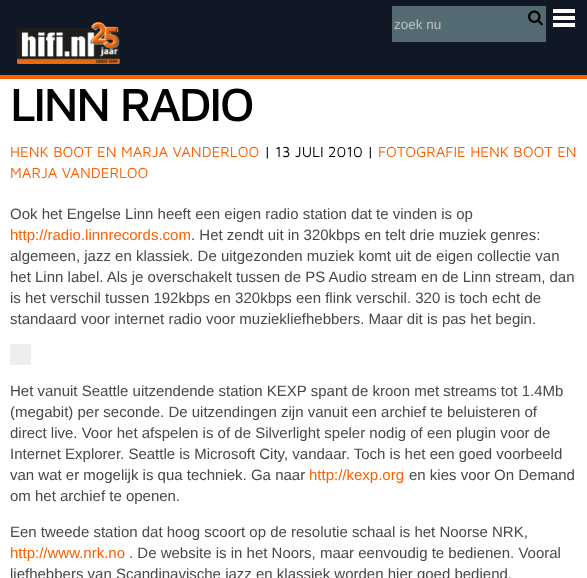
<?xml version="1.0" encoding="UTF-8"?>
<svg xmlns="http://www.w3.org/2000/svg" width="587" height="578">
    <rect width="100%" height="100%" fill="#FFFFFF"/>
    <rect x="0" y="0" width="587" height="75" fill="#101825"/>
    <rect x="0" y="75" width="587" height="4" fill="#FA6000"/>
    <image x="17" y="22" width="103" height="42" href="img_01.png"/>
    <rect x="392" y="6" width="154" height="36" fill="#546B73"/>
    <text x="394" y="29" font-family="Liberation Sans" font-size="13.5" fill="#C0C0C0">zoek nu</text>
    <image x="528" y="10" width="15" height="16" href="img_02.png"/>
    <image x="553" y="9" width="22" height="18" href="img_03.png"/>
    <text x="10" y="121" font-family="Maven Pro" font-size="48" font-weight="500" letter-spacing="-2.4" fill="#000000">LINN RADIO</text>
    <text x="10" y="157" font-family="Maven Pro" font-size="15" fill="#FA6000">HENK BOOT EN MARJA VANDERLOO</text>
    <text x="264" y="157" font-family="Maven Pro" font-size="15" fill="#000000">| 13 JULI 2010 |</text>
    <text x="378" y="157" font-family="Maven Pro" font-size="15" fill="#FA6000">FOTOGRAFIE HENK BOOT EN</text>
    <text x="10" y="178" font-family="Maven Pro" font-size="15" fill="#FA6000">MARJA VANDERLOO</text>
    <text x="10" y="219" font-family="Liberation Sans" font-size="15" fill="#484848">Ook het Engelse Linn heeft een eigen radio station dat te vinden is op</text>
    <text x="10" y="240" font-family="Liberation Sans" font-size="15" fill="#FA6000">http://radio.linnrecords.com</text>
    <text x="191" y="240" font-family="Liberation Sans" font-size="15" fill="#484848">. Het zendt uit in 320kbps en telt drie muziek genres:</text>
    <text font-family="Liberation Sans" font-size="15" fill="#484848">
        <tspan x="10" y="261">algemeen, jazz en klassiek. De uitgezonden muziek komt uit de eigen collectie van</tspan>
        <tspan x="10" y="282">het Linn label. Als je overschakelt tussen de PS Audio stream en de Linn stream, dan</tspan>
        <tspan x="10" y="303">is het verschil tussen 192kbps en 320kbps een flink verschil. 320 is toch echt de</tspan>
        <tspan x="10" y="324">standaard voor internet radio voor muziekliefhebbers. Maar dit is pas het begin.</tspan>
    </text>
    <rect x="15" y="349" width="11" height="11" fill="none" stroke="#EEEEEE" stroke-width="10"/>
    <text font-family="Liberation Sans" font-size="15" fill="#484848">
        <tspan x="10" y="396">Het vanuit Seattle uitzendende station KEXP spant de kroon met streams tot 1.4Mb</tspan>
        <tspan x="10" y="417">(megabit) per seconde. De uitzendingen zijn vanuit een archief te beluisteren of</tspan>
        <tspan x="10" y="438">direct live. Voor het afspelen is of de Silverlight speler nodig of een plugin voor de</tspan>
        <tspan x="10" y="459">Internet Explorer. Seattle is Microsoft City, vandaar. Toch is het een goed voorbeeld</tspan>
        <tspan x="10" y="480">van wat er mogelijk is qua techniek. Ga naar</tspan>
    </text>
    <text x="309" y="480" font-family="Liberation Sans" font-size="15" fill="#FA6000">http://kexp.org</text>
    <text x="409" y="480" font-family="Liberation Sans" font-size="15" fill="#484848">en kies voor On Demand</text>
    <text x="10" y="501" font-family="Liberation Sans" font-size="15" fill="#484848">om het archief te openen.</text>
    <text x="10" y="537" font-family="Liberation Sans" font-size="15" fill="#484848">Een tweede station dat hoog scoort op de resolutie schaal is het Noorse NRK,</text>
    <text x="10" y="558" font-family="Liberation Sans" font-size="15" fill="#FA6000">http://www.nrk.no</text>
    <text x="129" y="558" font-family="Liberation Sans" font-size="15" fill="#484848">. De website is in het Noors, maar eenvoudig te bedienen. Vooral</text>
    <text x="10" y="579" font-family="Liberation Sans" font-size="15" fill="#484848">liefhebbers van Scandinavische jazz en klassiek worden hier goed bediend.</text>
</svg>
